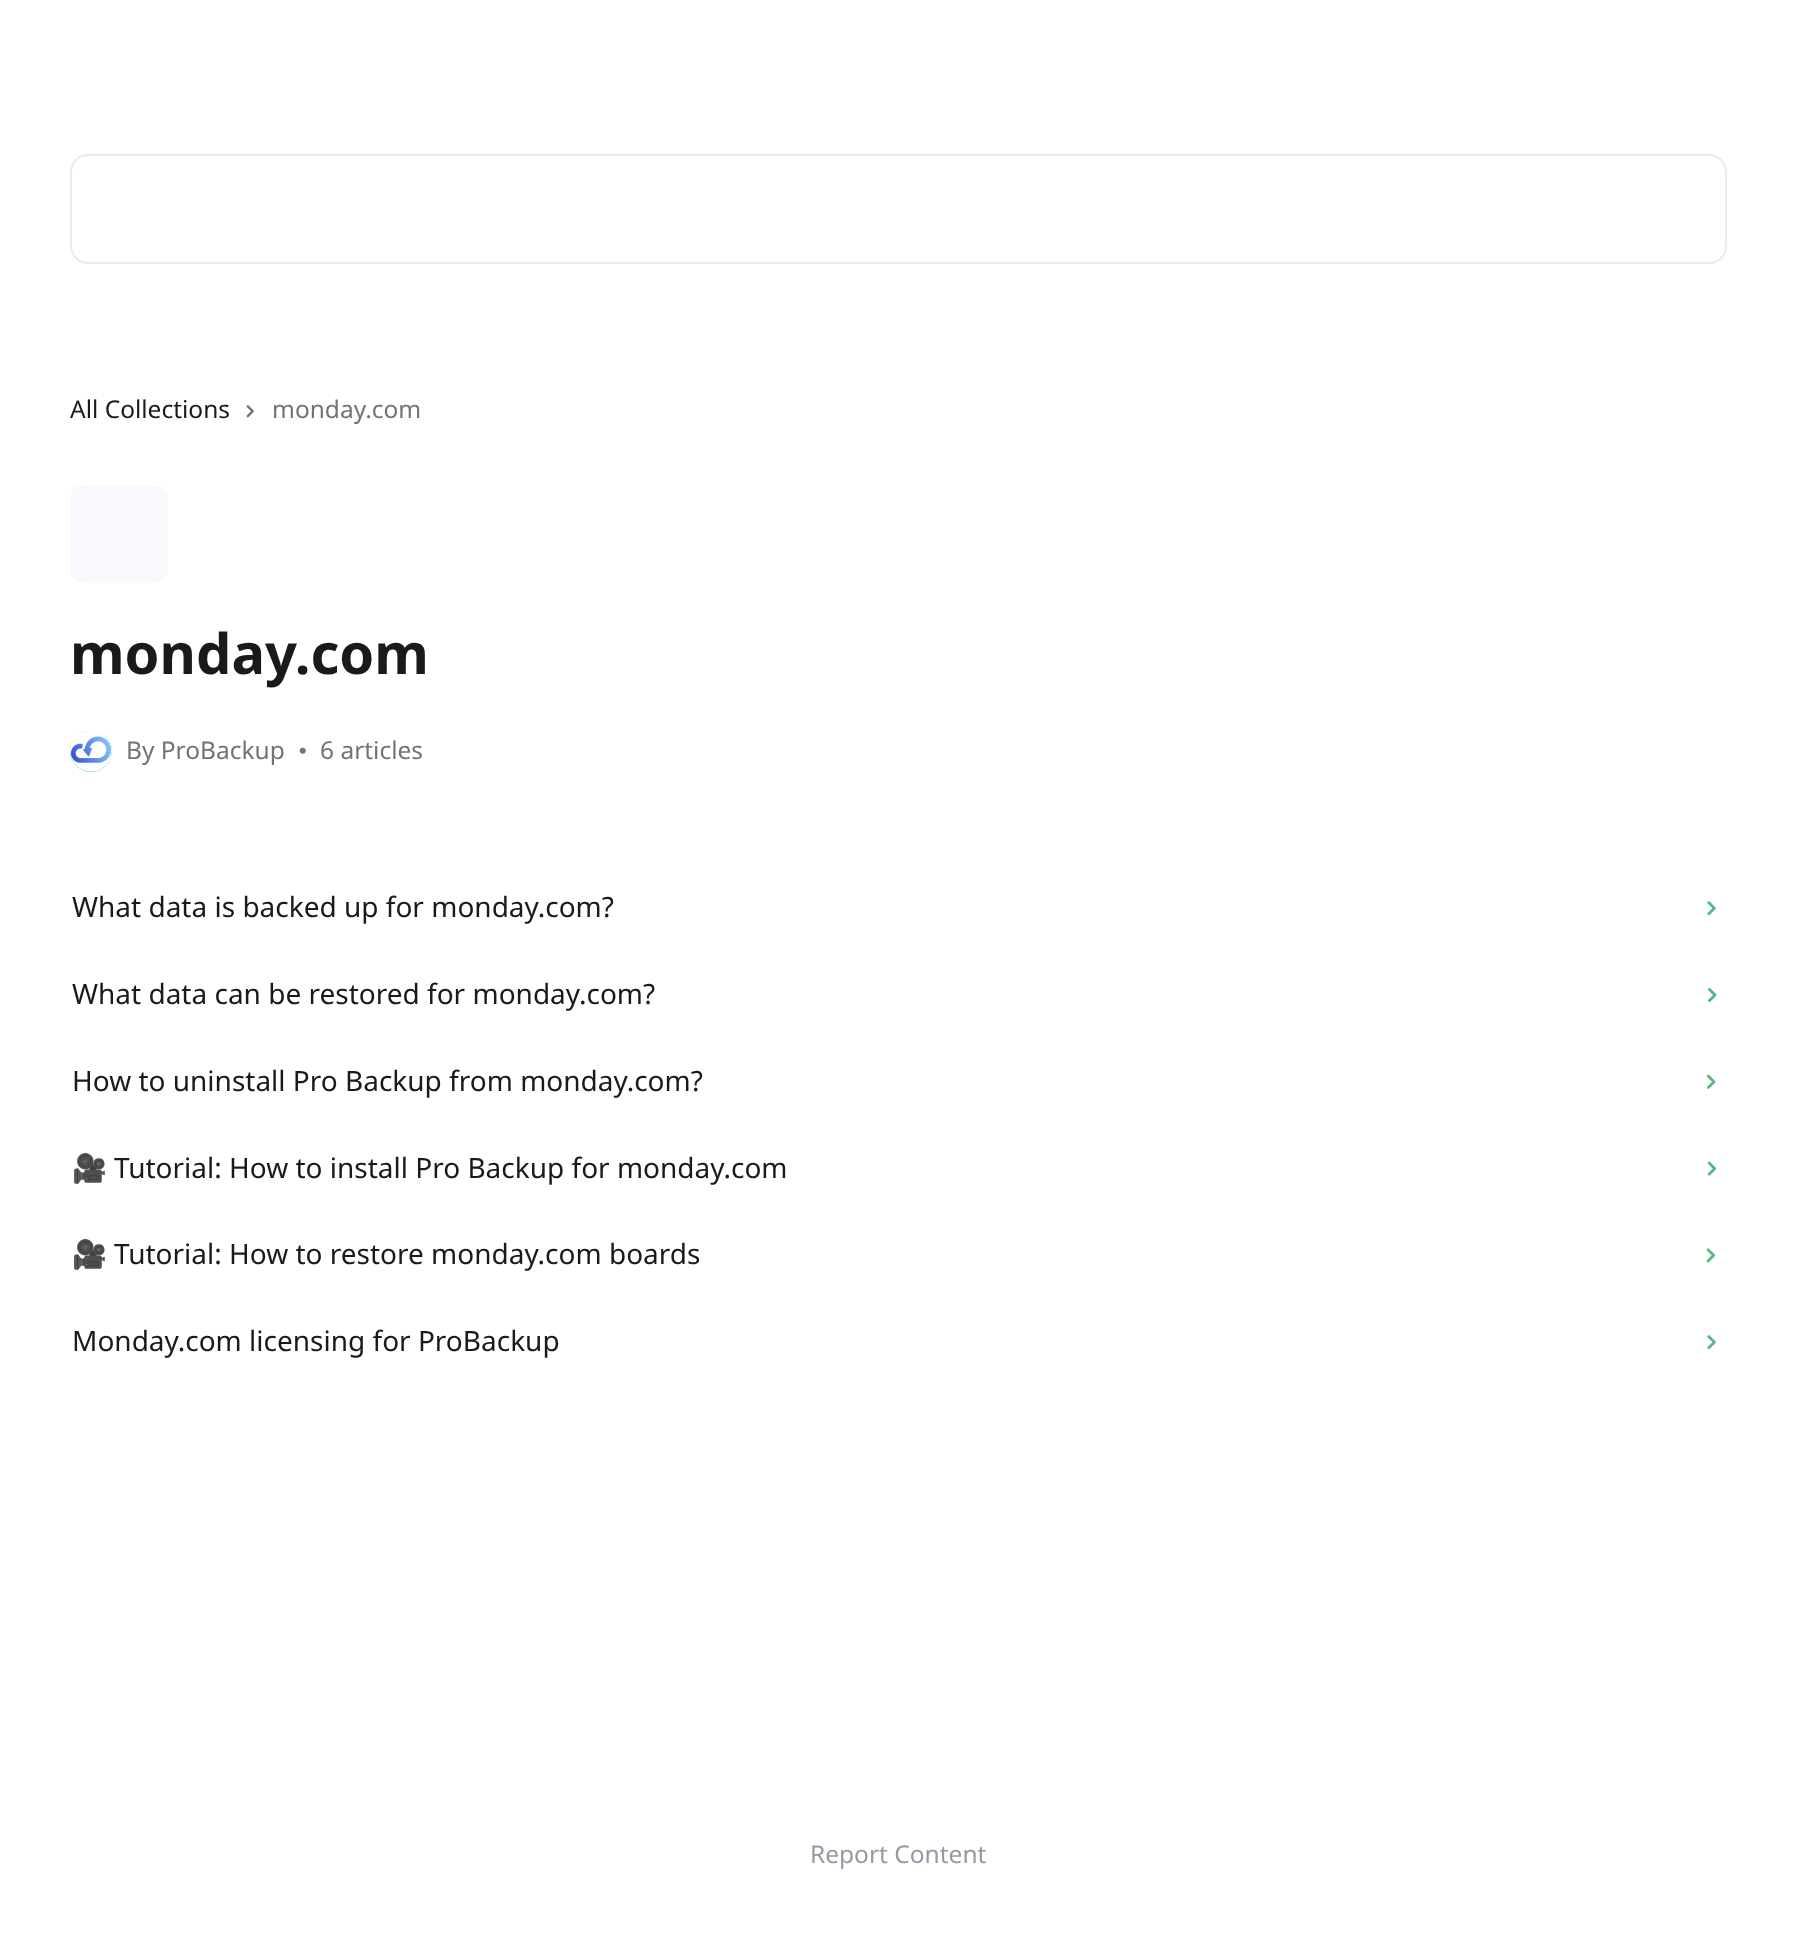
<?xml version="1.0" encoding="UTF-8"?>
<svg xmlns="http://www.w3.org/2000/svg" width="1796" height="1957">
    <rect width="100%" height="100%" fill="#FFFFFF"/>
    <rect x="71" y="155" width="1655" height="108" rx="17" fill="none" stroke="#EBEBEB" stroke-width="2"/>
    <text x="70" y="418" font-family="Noto Sans" font-size="24.5" fill="#1A1A1A">All Collections</text>
    <image x="246" y="405" width="8" height="13" href="img_01.png"/>
    <text x="272" y="418" font-family="Noto Sans" font-size="24.5" fill="#737373">monday.com</text>
    <rect x="70" y="485" width="98" height="98" rx="14" fill="#F7F9FC"/>
    <text x="70" y="674" font-family="Noto Sans" font-size="56" font-weight="700" fill="#1A1A1A">monday.com</text>
    <circle cx="91" cy="751" r="21" fill="#57B781"/>
    <image x="70" y="730" width="42" height="42" href="img_02.png"/>
    <text x="126" y="759" font-family="Noto Sans" font-size="24.5" fill="#737373">By ProBackup</text>
    <image x="299" y="747" width="7" height="7" href="img_03.png"/>
    <text x="320" y="759" font-family="Noto Sans" font-size="24.5" fill="#737373">6 articles</text>
    <text x="72" y="917" font-family="Noto Sans" font-size="28" fill="#1A1A1A">What data is backed up for monday.com?</text>
    <image x="1707" y="901" width="9" height="15" href="img_04.png"/>
    <text x="72" y="1004" font-family="Noto Sans" font-size="28" fill="#1A1A1A">What data can be restored for monday.com?</text>
    <image x="1708" y="988" width="9" height="14" href="img_05.png"/>
    <text x="72" y="1091" font-family="Noto Sans" font-size="28" fill="#1A1A1A">How to uninstall Pro Backup from monday.com?</text>
    <image x="1707" y="1074" width="9" height="15" href="img_06.png"/>
    <text x="72" y="1178" font-family="Noto Color Emoji" font-size="28" fill="#1A1A1A">🎥</text>
    <text x="114" y="1178" font-family="Noto Sans" font-size="28" fill="#1A1A1A">Tutorial: How to install Pro Backup for monday.com</text>
    <image x="1707" y="1161" width="10" height="15" href="img_07.png"/>
    <text x="72" y="1264" font-family="Noto Color Emoji" font-size="28" fill="#1A1A1A">🎥</text>
    <text x="114" y="1264" font-family="Noto Sans" font-size="28" fill="#1A1A1A">Tutorial: How to restore monday.com boards</text>
    <image x="1706" y="1248" width="9" height="15" href="img_08.png"/>
    <text x="72" y="1351" font-family="Noto Sans" font-size="28" fill="#1A1A1A">Monday.com licensing for ProBackup</text>
    <image x="1707" y="1335" width="9" height="15" href="img_09.png"/>
    <text x="810" y="1863" font-family="Noto Sans" font-size="24.5" fill="#929BA5">Report Content</text>
</svg>
